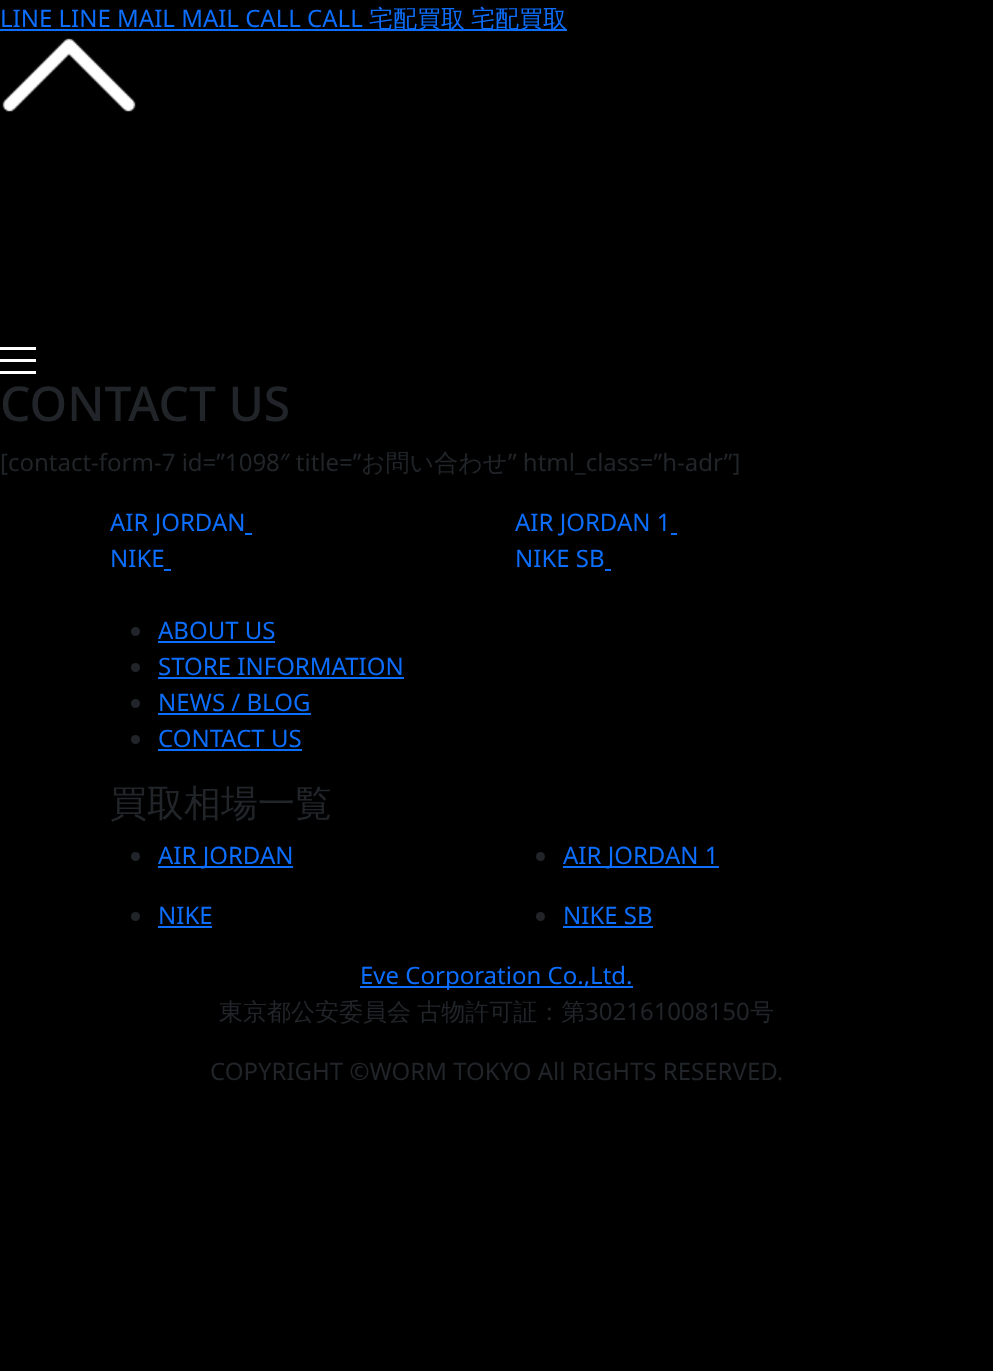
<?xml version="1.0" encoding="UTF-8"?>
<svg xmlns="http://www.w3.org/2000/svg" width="993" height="1371">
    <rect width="100%" height="100%" fill="#000000"/>
    <text x="0" y="27" font-family="Noto Sans" font-size="24" fill="#0D6EFD">LINE LINE MAIL MAIL CALL CALL</text>
    <rect x="0" y="29" width="567" height="2" fill="#0D6EFD"/>
    <text x="369" y="27" font-family="WenQuanYi Zen Hei" font-size="24" font-weight="500" fill="#0D6EFD">宅配買取</text>
    <text x="471" y="27" font-family="WenQuanYi Zen Hei" font-size="24" font-weight="500" fill="#0D6EFD">宅配買取</text>
    <image x="2" y="38" width="134" height="74" href="img_01.png"/>
    <rect x="0" y="359" width="36" height="3" fill="#FFFFFF"/>
    <rect x="0" y="347" width="36" height="3" fill="#FFFFFF"/>
    <rect x="0" y="371" width="36" height="3" fill="#FFFFFF"/>
    <text x="0" y="421" font-family="Noto Sans" font-size="48" font-weight="500" fill="#212529">CONTACT US</text>
    <text x="0" y="471" font-family="Noto Sans" font-size="24" fill="#212529">[contact-form-7 id=”1098″ title=”</text>
    <text x="361" y="471" font-family="WenQuanYi Zen Hei" font-size="24" font-weight="500" fill="#212529">お問い合わせ</text>
    <text x="508" y="471" font-family="Noto Sans" font-size="24" fill="#212529">” html_class=”h-adr”]</text>
    <text x="110" y="531" font-family="Noto Sans" font-size="24" fill="#0D6EFD">AIR JORDAN</text>
    <rect x="245" y="533" width="7" height="2" fill="#0D6EFD"/>
    <text x="515" y="531" font-family="Noto Sans" font-size="24" fill="#0D6EFD">AIR JORDAN 1</text>
    <rect x="671" y="533" width="6" height="2" fill="#0D6EFD"/>
    <text x="110" y="567" font-family="Noto Sans" font-size="24" fill="#0D6EFD">NIKE</text>
    <rect x="164" y="569" width="7" height="2" fill="#0D6EFD"/>
    <text x="515" y="567" font-family="Noto Sans" font-size="24" fill="#0D6EFD">NIKE SB</text>
    <rect x="605" y="569" width="6" height="2" fill="#0D6EFD"/>
    <circle cx="135.5" cy="631.5" r="4.5" fill="#212529"/>
    <text x="158" y="639" font-family="Noto Sans" font-size="24" fill="#0D6EFD">ABOUT US</text>
    <rect x="158" y="641" width="117" height="2" fill="#0D6EFD"/>
    <circle cx="135.5" cy="667.5" r="4.5" fill="#212529"/>
    <text x="158" y="675" font-family="Noto Sans" font-size="24" fill="#0D6EFD">STORE INFORMATION</text>
    <rect x="158" y="677" width="246" height="2" fill="#0D6EFD"/>
    <circle cx="135.5" cy="703.5" r="4.5" fill="#212529"/>
    <text x="158" y="711" font-family="Noto Sans" font-size="24" fill="#0D6EFD">NEWS / BLOG</text>
    <rect x="158" y="713" width="153" height="2" fill="#0D6EFD"/>
    <circle cx="135.5" cy="739.5" r="4.5" fill="#212529"/>
    <text x="158" y="747" font-family="Noto Sans" font-size="24" fill="#0D6EFD">CONTACT US</text>
    <rect x="158" y="749" width="144" height="2" fill="#0D6EFD"/>
    <text x="110" y="816" font-family="WenQuanYi Zen Hei" font-size="37" font-weight="500" fill="#212529">買取相場一覧</text>
    <circle cx="135.5" cy="856.5" r="4.5" fill="#212529"/>
    <rect x="158" y="866" width="135" height="2" fill="#0D6EFD"/>
    <text x="158" y="864" font-family="Noto Sans" font-size="24" fill="#0D6EFD">AIR JORDAN</text>
    <circle cx="540.5" cy="856.5" r="4.5" fill="#212529"/>
    <rect x="563" y="866" width="156" height="2" fill="#0D6EFD"/>
    <text x="563" y="864" font-family="Noto Sans" font-size="24" fill="#0D6EFD">AIR JORDAN 1</text>
    <circle cx="135.5" cy="916.5" r="4.5" fill="#212529"/>
    <text x="158" y="924" font-family="Noto Sans" font-size="24" fill="#0D6EFD">NIKE</text>
    <rect x="158" y="926" width="54" height="2" fill="#0D6EFD"/>
    <circle cx="540.5" cy="916.5" r="4.5" fill="#212529"/>
    <text x="563" y="924" font-family="Noto Sans" font-size="24" fill="#0D6EFD">NIKE SB</text>
    <rect x="563" y="926" width="90" height="2" fill="#0D6EFD"/>
    <rect x="360" y="986" width="273" height="2" fill="#0D6EFD"/>
    <text x="360" y="984" font-family="Noto Sans" font-size="24" fill="#0D6EFD">Eve Corporation Co.,Ltd.</text>
    <text x="219" y="1020" word-spacing="-1" font-family="WenQuanYi Zen Hei" font-size="24" font-weight="500" fill="#212529">東京都公安委員会 古物許可証：第</text>
    <text x="585" y="1020" font-family="Noto Sans" font-size="24" fill="#212529">302161008150</text>
    <text x="750" y="1020" font-family="WenQuanYi Zen Hei" font-size="24" font-weight="500" fill="#212529">号</text>
    <text x="210" y="1080" font-family="Noto Sans" font-size="24" fill="#212529">COPYRIGHT ©︎WORM TOKYO All RIGHTS RESERVED.</text>
</svg>
